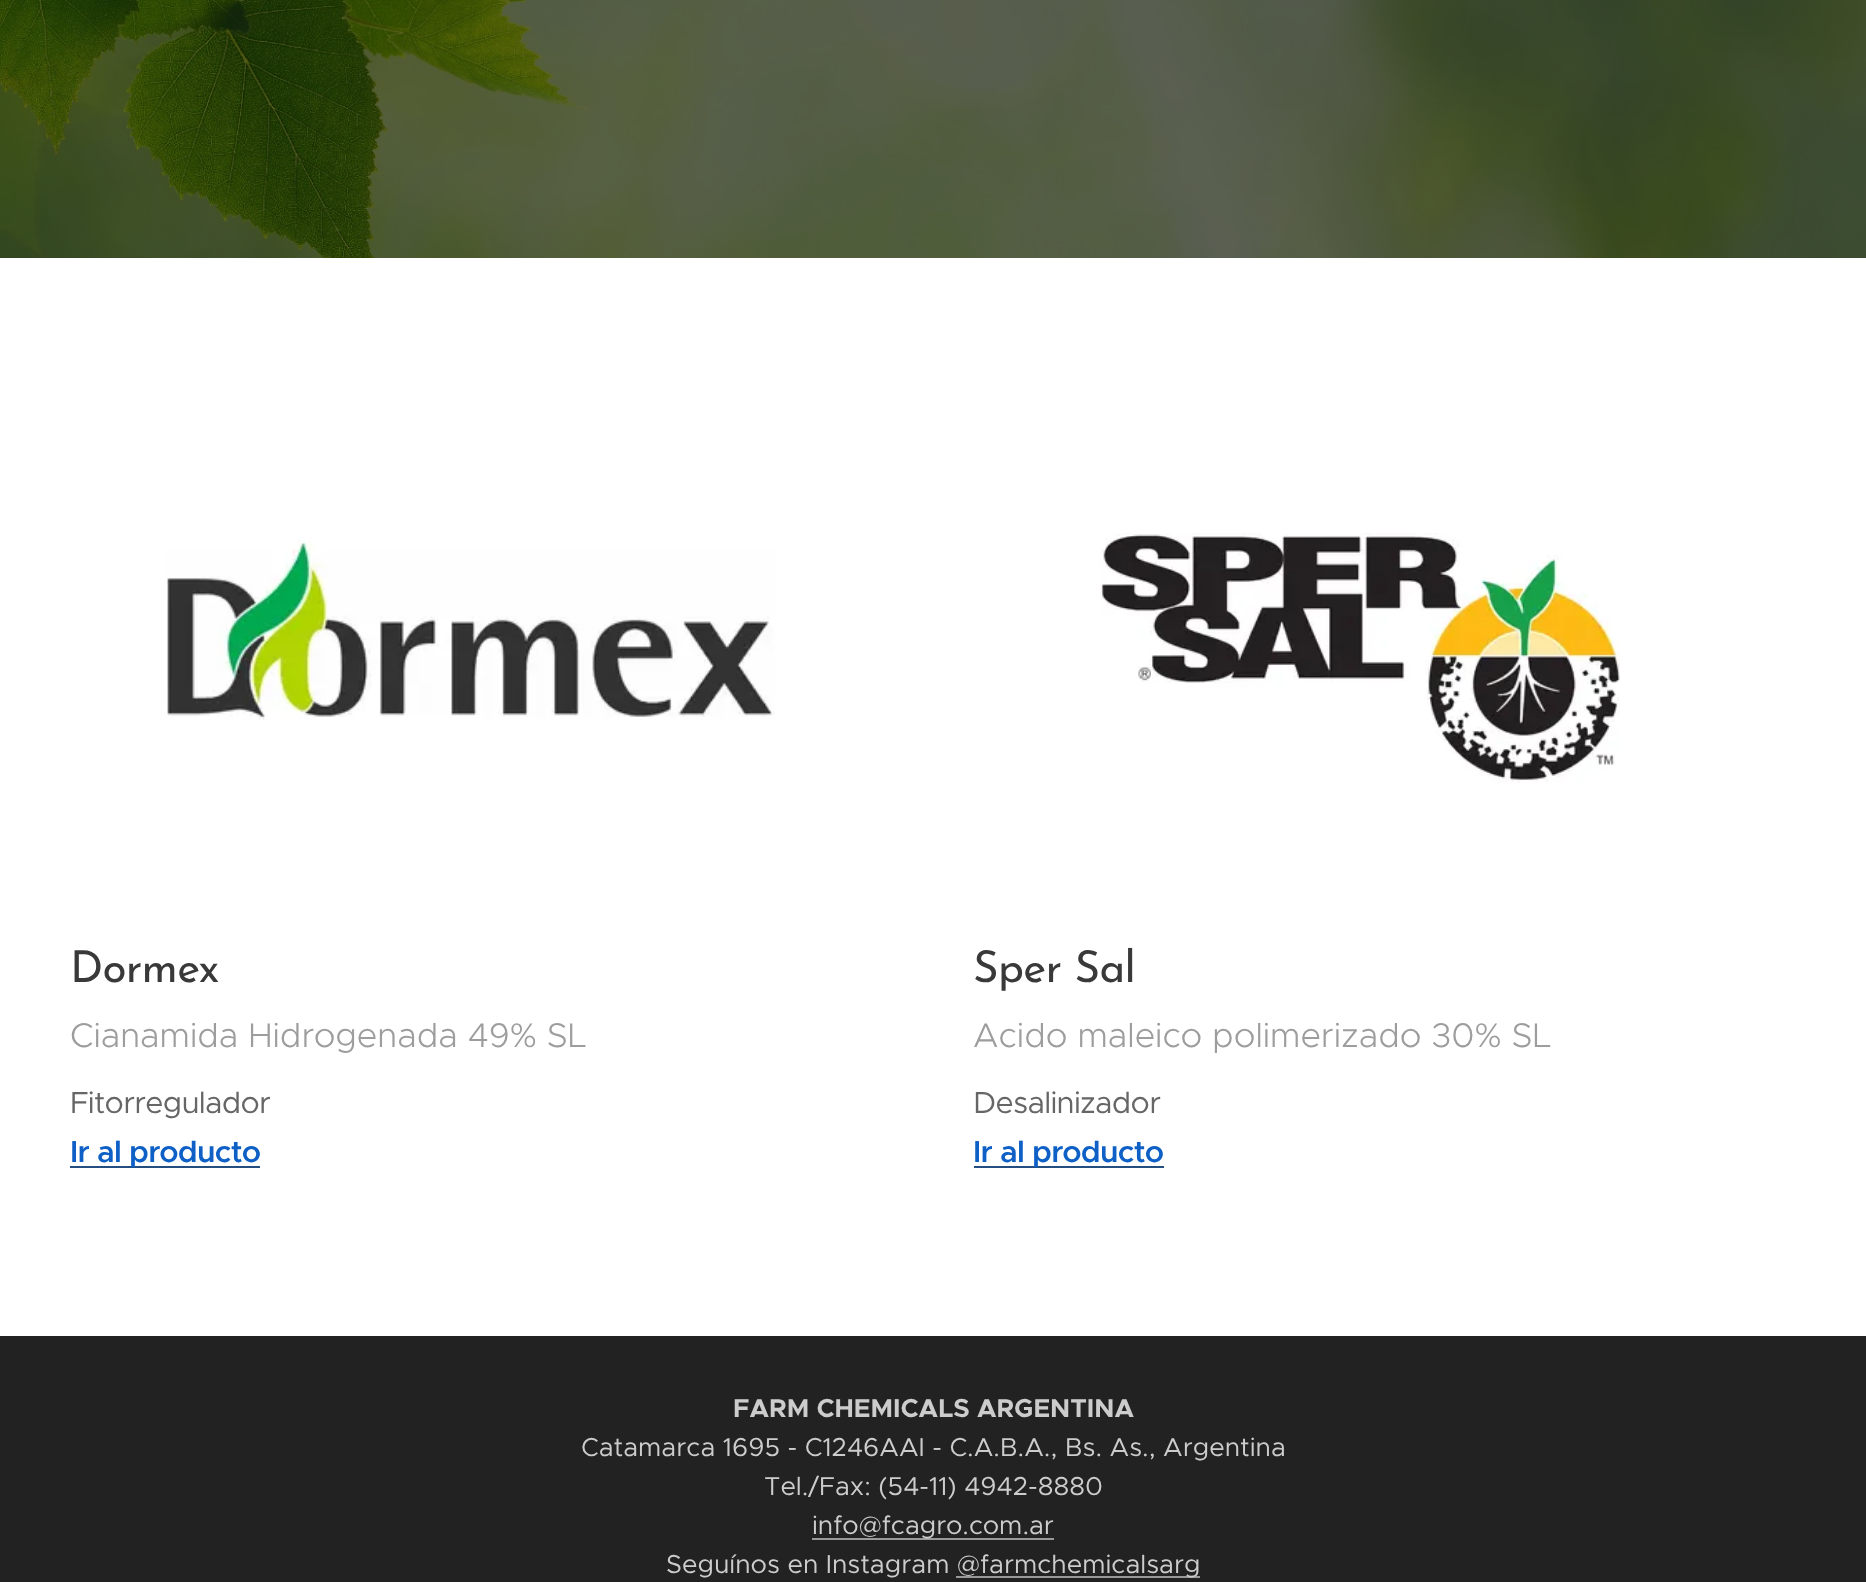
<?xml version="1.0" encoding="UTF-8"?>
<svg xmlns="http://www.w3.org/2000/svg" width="1866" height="1582">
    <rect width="100%" height="100%" fill="#FFFFFF"/>
    <image x="0" y="0" width="1866" height="258" href="img_01.png"/>
    <image x="166" y="537" width="609" height="183" href="img_02.png"/>
    <text x="70" y="982" font-family="Josefin Sans" font-size="44" letter-spacing="-0.7" fill="#393939">Dormex</text>
    <text x="70" y="1047" font-family="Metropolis" font-size="34.4" font-weight="300" fill="#9D9D9D">Cianamida Hidrogenada 49% SL</text>
    <text x="70" y="1113" font-family="Metropolis" font-size="30.5" letter-spacing="-0.7" fill="#666666">Fitorregulador</text>
    <rect x="70" y="1166" width="190" height="2" fill="#244D80"/>
    <text x="70" y="1162" font-family="Metropolis" font-size="30.5" font-weight="600" letter-spacing="-0.7" fill="#0E60C6">Ir al producto</text>
    <image x="1100" y="533" width="520" height="250" href="img_03.png"/>
    <text x="973" y="982" font-family="Josefin Sans" font-size="44" letter-spacing="-0.7" fill="#393939">Sper Sal</text>
    <text x="973" y="1047" font-family="Metropolis" font-size="34.4" font-weight="300" fill="#9D9D9D">Acido maleico polimerizado 30% SL</text>
    <text x="973" y="1113" font-family="Metropolis" font-size="30.5" letter-spacing="-0.7" fill="#666666">Desalinizador</text>
    <rect x="974" y="1166" width="190" height="2" fill="#244D80"/>
    <text x="973" y="1162" font-family="Metropolis" font-size="30.5" font-weight="600" letter-spacing="-0.7" fill="#0E60C6">Ir al producto</text>
    <rect x="0" y="1336" width="1866" height="246" fill="#222222"/>
    <text x="733" y="1417" font-family="Metropolis" font-size="26" font-weight="700" fill="#CCCCCC">FARM CHEMICALS ARGENTINA</text>
    <text x="581" y="1456" font-family="Metropolis" font-size="26" fill="#CCCCCC">Catamarca 1695 - C1246AAI - C.A.B.A., Bs. As., Argentina</text>
    <text x="764" y="1495" font-family="Metropolis" font-size="26" fill="#CCCCCC">Tel./Fax: (54-11) 4942-8880</text>
    <rect x="812" y="1538" width="242" height="2" fill="#999999"/>
    <text x="812" y="1534" font-family="Metropolis" font-size="26" fill="#CCCCCC">info@fcagro.com.ar</text>
    <text x="666" y="1573" font-family="Metropolis" font-size="26" fill="#CCCCCC">Seguínos en Instagram</text>
    <rect x="956" y="1576" width="244" height="2" fill="#999999"/>
    <text x="957" y="1573" font-family="Metropolis" font-size="26" fill="#CCCCCC">@farmchemicalsarg</text>
</svg>
